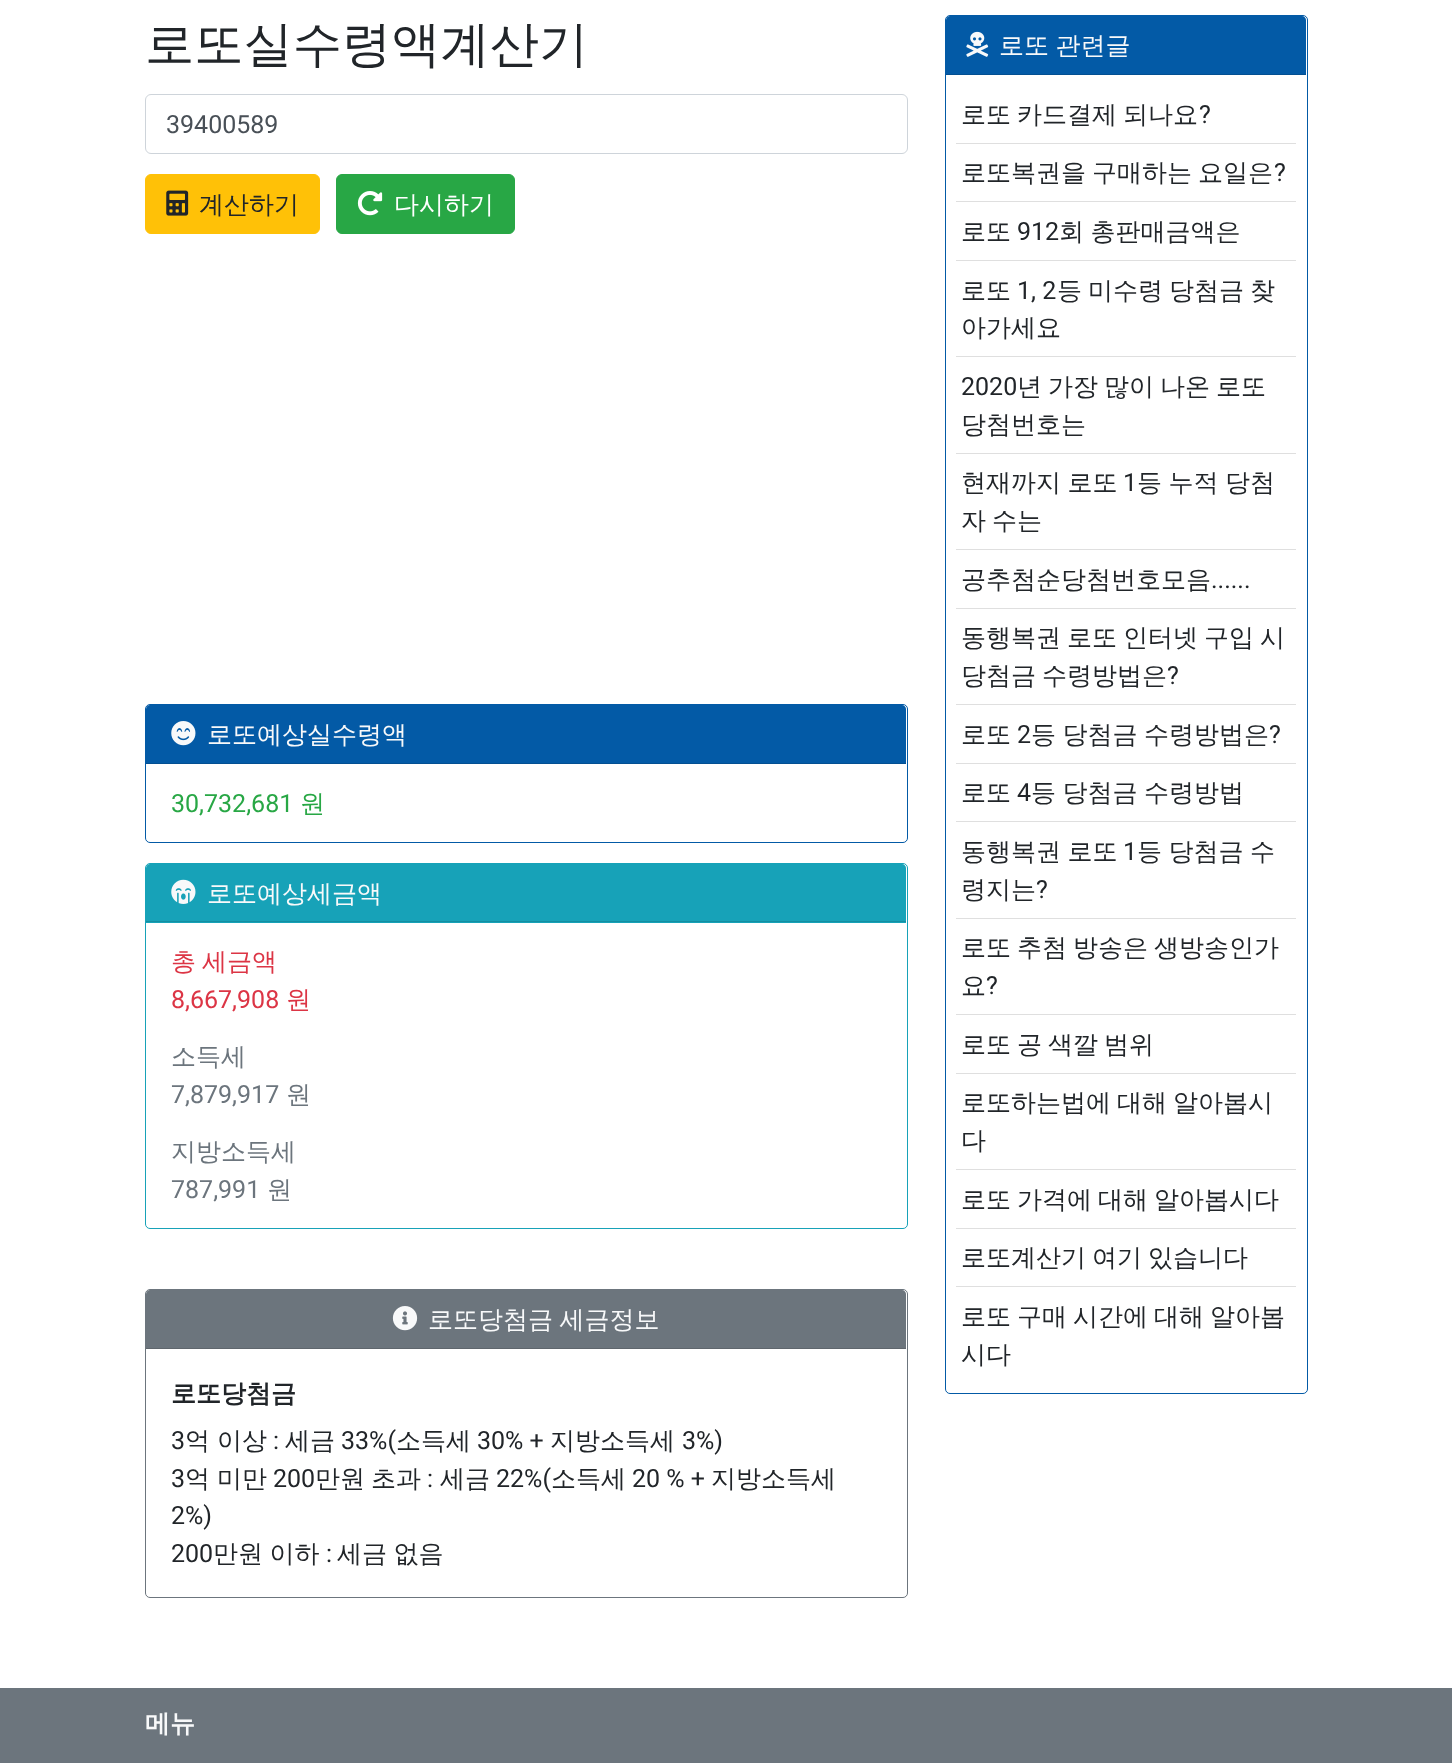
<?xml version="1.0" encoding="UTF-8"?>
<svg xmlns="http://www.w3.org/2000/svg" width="1452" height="1763">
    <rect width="100%" height="100%" fill="#FFFFFF"/>
    <text x="145" y="61" font-family="WenQuanYi Zen Hei" font-size="49.25" font-weight="500" fill="#212529">로또실수령액계산기</text>
    <rect x="145.5" y="94.5" width="762" height="59" rx="5.5" fill="none" stroke="#CED4DA"/>
    <text x="166" y="133" font-family="Roboto" font-size="25" fill="#495057">39400589</text>
    <rect x="145.5" y="174.5" width="174" height="59" rx="5.5" fill="#FFC107" stroke="#FFC107"/>
    <image x="166" y="190" width="23" height="26" href="img_01.png"/>
    <text x="199" y="213" font-family="WenQuanYi Zen Hei" font-size="25" font-weight="500" fill="#212529">계산하기</text>
    <rect x="336.5" y="174.5" width="178" height="59" rx="5.5" fill="#28A745" stroke="#28A745"/>
    <image x="357" y="191" width="26" height="25" href="img_02.png"/>
    <text x="394" y="213" font-family="WenQuanYi Zen Hei" font-size="25" font-weight="500" fill="#FFFFFF">다시하기</text>
    <rect x="145.5" y="704.5" width="762" height="138" rx="4.5" fill="none" stroke="#035AA6"/>
    <path d="M 150 705 H 902 C 904 705 906 707 906 709 V 764 H 146 V 709 C 146 707 148 705 150 705 Z" fill="#035AA6"/>
    <rect x="146" y="763" width="760" height="1" fill="#034F91"/>
    <image x="171" y="721" width="25" height="25" href="img_03.png"/>
    <text x="207" y="743" font-family="WenQuanYi Zen Hei" font-size="25" font-weight="500" fill="#F8F9FA">로또예상실수령액</text>
    <text x="171" y="812" font-family="Roboto" font-size="25" fill="#28A745">30,732,681</text>
    <text x="300" y="812" font-family="WenQuanYi Zen Hei" font-size="25" font-weight="500" fill="#28A745">원</text>
    <rect x="145.5" y="863.5" width="762" height="365" rx="4.5" fill="none" stroke="#17A2B8"/>
    <path d="M 150 864 H 902 C 904 864 906 866 906 868 V 923 H 146 V 868 C 146 866 148 864 150 864 Z" fill="#17A2B8"/>
    <rect x="146" y="921" width="760" height="1" fill="#148EA1"/>
    <image x="171" y="879" width="25" height="25" href="img_04.png"/>
    <text x="207" y="902" font-family="WenQuanYi Zen Hei" font-size="25" font-weight="500" fill="#F8F9FA">로또예상세금액</text>
    <text x="171" y="970" word-spacing="-1.5" font-family="WenQuanYi Zen Hei" font-size="25" font-weight="500" fill="#DC3545">총 세금액</text>
    <text x="171" y="1008" font-family="Roboto" font-size="25" fill="#DC3545">8,667,908</text>
    <text x="286" y="1008" font-family="WenQuanYi Zen Hei" font-size="25" font-weight="500" fill="#DC3545">원</text>
    <text x="171" y="1065" font-family="WenQuanYi Zen Hei" font-size="25" font-weight="500" fill="#6C757D">소득세</text>
    <text x="171" y="1103" font-family="Roboto" font-size="25" fill="#6C757D">7,879,917</text>
    <text x="286" y="1103" font-family="WenQuanYi Zen Hei" font-size="25" font-weight="500" fill="#6C757D">원</text>
    <text x="171" y="1160" font-family="WenQuanYi Zen Hei" font-size="25" font-weight="500" fill="#6C757D">지방소득세</text>
    <text x="171" y="1198" font-family="Roboto" font-size="25" fill="#6C757D">787,991</text>
    <text x="267" y="1198" font-family="WenQuanYi Zen Hei" font-size="25" font-weight="500" fill="#6C757D">원</text>
    <rect x="145.5" y="1289.5" width="762" height="308" rx="4.5" fill="none" stroke="#6C757D"/>
    <path d="M 150 1290 H 902 C 904 1290 906 1292 906 1294 V 1349 H 146 V 1294 C 146 1292 148 1290 150 1290 Z" fill="#6C757D"/>
    <rect x="146" y="1348" width="760" height="1" fill="#5F666D"/>
    <image x="392" y="1306" width="26" height="25" href="img_05.png"/>
    <text x="428" y="1328" word-spacing="-1" font-family="WenQuanYi Zen Hei" font-size="25" font-weight="500" fill="#F8F9FA">로또당첨금 세금정보</text>
    <text x="171" y="1402" font-family="WenQuanYi Zen Hei" font-size="25" font-weight="700" fill="#212529">로또당첨금</text>
    <text x="171" y="1449" font-family="Roboto" font-size="25" fill="#212529">3</text>
    <text x="185" y="1449" font-family="WenQuanYi Zen Hei" font-size="25" font-weight="500" fill="#212529">억</text>
    <text x="217" y="1449" font-family="WenQuanYi Zen Hei" font-size="25" font-weight="500" fill="#212529">이상</text>
    <text x="273" y="1449" font-family="Roboto" font-size="25" fill="#212529">:</text>
    <text x="285" y="1449" font-family="WenQuanYi Zen Hei" font-size="25" font-weight="500" fill="#212529">세금</text>
    <text x="341" y="1449" font-family="Roboto" font-size="25" fill="#212529">33%(</text>
    <text x="396" y="1449" font-family="WenQuanYi Zen Hei" font-size="25" font-weight="500" fill="#212529">소득세</text>
    <text x="477" y="1449" font-family="Roboto" font-size="25" fill="#212529">30% +</text>
    <text x="550" y="1449" font-family="WenQuanYi Zen Hei" font-size="25" font-weight="500" fill="#212529">지방소득세</text>
    <text x="682" y="1449" font-family="Roboto" font-size="25" fill="#212529">3%)</text>
    <text x="171" y="1487" font-family="Roboto" font-size="25" fill="#212529">3</text>
    <text x="185" y="1487" font-family="WenQuanYi Zen Hei" font-size="25" font-weight="500" fill="#212529">억</text>
    <text x="217" y="1487" font-family="WenQuanYi Zen Hei" font-size="25" font-weight="500" fill="#212529">미만</text>
    <text x="273" y="1487" font-family="Roboto" font-size="25" fill="#212529">200</text>
    <text x="315" y="1487" font-family="WenQuanYi Zen Hei" font-size="25" font-weight="500" fill="#212529">만원</text>
    <text x="371" y="1487" font-family="WenQuanYi Zen Hei" font-size="25" font-weight="500" fill="#212529">초과</text>
    <text x="427" y="1487" font-family="Roboto" font-size="25" fill="#212529">:</text>
    <text x="440" y="1487" font-family="WenQuanYi Zen Hei" font-size="25" font-weight="500" fill="#212529">세금</text>
    <text x="496" y="1487" font-family="Roboto" font-size="25" fill="#212529">22%(</text>
    <text x="551" y="1487" font-family="WenQuanYi Zen Hei" font-size="25" font-weight="500" fill="#212529">소득세</text>
    <text x="632" y="1487" font-family="Roboto" font-size="25" fill="#212529">20 % +</text>
    <text x="711" y="1487" font-family="WenQuanYi Zen Hei" font-size="25" font-weight="500" fill="#212529">지방소득세</text>
    <text font-family="Roboto" font-size="25" fill="#212529">
        <tspan x="171" y="1524">2%)</tspan>
        <tspan x="171" y="1562">200</tspan>
    </text>
    <text x="213" y="1562" word-spacing="-1" font-family="WenQuanYi Zen Hei" font-size="25" font-weight="500" fill="#212529">만원 이하</text>
    <text x="326" y="1562" font-family="Roboto" font-size="25" fill="#212529">:</text>
    <text x="337" y="1562" word-spacing="-1" font-family="WenQuanYi Zen Hei" font-size="25" font-weight="500" fill="#212529">세금 없음</text>
    <rect x="945.5" y="15.5" width="362" height="1378" rx="4.5" fill="none" stroke="#035AA6"/>
    <path d="M 950 16 H 1302 C 1304 16 1306 18 1306 20 V 75 H 946 V 20 C 946 18 948 16 950 16 Z" fill="#035AA6"/>
    <rect x="946" y="74" width="360" height="1" fill="#034F91"/>
    <image x="966" y="31" width="23" height="26" href="img_06.png"/>
    <text x="999" y="54" word-spacing="-1" font-family="WenQuanYi Zen Hei" font-size="25" font-weight="500" fill="#F8F9FA">로또 관련글</text>
    <text x="961" y="123" word-spacing="-1.5" font-family="WenQuanYi Zen Hei" font-size="25" font-weight="500" fill="#212529">로또 카드결제 되나요</text>
    <text x="1199" y="123" font-family="Roboto" font-size="25" fill="#212529">?</text>
    <rect x="956" y="143" width="340" height="1" fill="#DFDFDF"/>
    <text x="961" y="181" word-spacing="-1.5" font-family="WenQuanYi Zen Hei" font-size="25" font-weight="500" fill="#212529">로또복권을 구매하는 요일은</text>
    <text x="1274" y="181" font-family="Roboto" font-size="25" fill="#212529">?</text>
    <rect x="956" y="201" width="340" height="1" fill="#DFDFDF"/>
    <text x="961" y="240" font-family="WenQuanYi Zen Hei" font-size="25" font-weight="500" fill="#212529">로또</text>
    <text x="1017" y="240" font-family="Roboto" font-size="25" fill="#212529">912</text>
    <text x="1059" y="240" word-spacing="-1" font-family="WenQuanYi Zen Hei" font-size="25" font-weight="500" fill="#212529">회 총판매금액은</text>
    <rect x="956" y="260" width="340" height="1" fill="#DFDFDF"/>
    <text x="961" y="299" font-family="WenQuanYi Zen Hei" font-size="25" font-weight="500" fill="#212529">로또</text>
    <text x="1017" y="299" font-family="Roboto" font-size="25" fill="#212529">1, 2</text>
    <text x="1057" y="299" font-family="WenQuanYi Zen Hei" font-size="25" font-weight="500" fill="#212529">등</text>
    <text x="1088" y="299" font-family="WenQuanYi Zen Hei" font-size="25" font-weight="500" fill="#212529">미수령</text>
    <text x="1169" y="299" font-family="WenQuanYi Zen Hei" font-size="25" font-weight="500" fill="#212529">당첨금</text>
    <text x="1250" y="299" font-family="WenQuanYi Zen Hei" font-size="25" font-weight="500" fill="#212529">찾</text>
    <text x="961" y="336" font-family="WenQuanYi Zen Hei" font-size="25" font-weight="500" fill="#212529">아가세요</text>
    <rect x="956" y="356" width="340" height="1" fill="#DFDFDF"/>
    <text x="961" y="395" font-family="Roboto" font-size="25" fill="#212529">2020</text>
    <text x="1017" y="395" word-spacing="-1.5" font-family="WenQuanYi Zen Hei" font-size="25" font-weight="500" fill="#212529">년 가장 많이 나온 로또</text>
    <text x="961" y="433" font-family="WenQuanYi Zen Hei" font-size="25" font-weight="500" fill="#212529">당첨번호는</text>
    <rect x="956" y="453" width="340" height="1" fill="#DFDFDF"/>
    <text x="961" y="491" word-spacing="-1" font-family="WenQuanYi Zen Hei" font-size="25" font-weight="500" fill="#212529">현재까지 로또</text>
    <text x="1123" y="491" font-family="Roboto" font-size="25" fill="#212529">1</text>
    <text x="1137" y="491" word-spacing="-1" font-family="WenQuanYi Zen Hei" font-size="25" font-weight="500" fill="#212529">등 누적 당첨</text>
    <text x="961" y="529" word-spacing="-1.5" font-family="WenQuanYi Zen Hei" font-size="25" font-weight="500" fill="#212529">자 수는</text>
    <rect x="956" y="549" width="340" height="1" fill="#DFDFDF"/>
    <text x="961" y="588" font-family="WenQuanYi Zen Hei" font-size="25" font-weight="500" fill="#212529">공추첨순당첨번호모음</text>
    <text x="1211" y="588" font-family="Roboto" font-size="25" fill="#212529">......</text>
    <rect x="956" y="608" width="340" height="1" fill="#DFDFDF"/>
    <text font-family="WenQuanYi Zen Hei" font-size="25" font-weight="500" fill="#212529">
        <tspan x="961" y="646" word-spacing="-1.5">동행복권 로또 인터넷 구입 시</tspan>
        <tspan x="961" y="684" word-spacing="-1.5">당첨금 수령방법은</tspan>
    </text>
    <text x="1167" y="684" font-family="Roboto" font-size="25" fill="#212529">?</text>
    <rect x="956" y="704" width="340" height="1" fill="#DFDFDF"/>
    <text x="961" y="743" font-family="WenQuanYi Zen Hei" font-size="25" font-weight="500" fill="#212529">로또</text>
    <text x="1017" y="743" font-family="Roboto" font-size="25" fill="#212529">2</text>
    <text x="1031" y="743" word-spacing="-1" font-family="WenQuanYi Zen Hei" font-size="25" font-weight="500" fill="#212529">등 당첨금 수령방법은</text>
    <text x="1269" y="743" font-family="Roboto" font-size="25" fill="#212529">?</text>
    <rect x="956" y="763" width="340" height="1" fill="#DFDFDF"/>
    <text x="961" y="801" font-family="WenQuanYi Zen Hei" font-size="25" font-weight="500" fill="#212529">로또</text>
    <text x="1017" y="801" font-family="Roboto" font-size="25" fill="#212529">4</text>
    <text x="1031" y="801" word-spacing="-1" font-family="WenQuanYi Zen Hei" font-size="25" font-weight="500" fill="#212529">등 당첨금 수령방법</text>
    <rect x="956" y="821" width="340" height="1" fill="#DFDFDF"/>
    <text x="961" y="860" word-spacing="-1" font-family="WenQuanYi Zen Hei" font-size="25" font-weight="500" fill="#212529">동행복권 로또</text>
    <text x="1123" y="860" font-family="Roboto" font-size="25" fill="#212529">1</text>
    <text x="1137" y="860" word-spacing="-1" font-family="WenQuanYi Zen Hei" font-size="25" font-weight="500" fill="#212529">등 당첨금 수</text>
    <text x="961" y="898" font-family="WenQuanYi Zen Hei" font-size="25" font-weight="500" fill="#212529">령지는</text>
    <text x="1036" y="898" font-family="Roboto" font-size="25" fill="#212529">?</text>
    <rect x="956" y="918" width="340" height="1" fill="#DFDFDF"/>
    <text font-family="WenQuanYi Zen Hei" font-size="25" font-weight="500" fill="#212529">
        <tspan x="961" y="956" word-spacing="-1.5">로또 추첨 방송은 생방송인가</tspan>
        <tspan x="961" y="994">요</tspan>
    </text>
    <text x="986" y="994" font-family="Roboto" font-size="25" fill="#212529">?</text>
    <rect x="956" y="1014" width="340" height="1" fill="#DFDFDF"/>
    <text x="961" y="1053" word-spacing="-1.5" font-family="WenQuanYi Zen Hei" font-size="25" font-weight="500" fill="#212529">로또 공 색깔 범위</text>
    <rect x="956" y="1073" width="340" height="1" fill="#DFDFDF"/>
    <text font-family="WenQuanYi Zen Hei" font-size="25" font-weight="500" fill="#212529">
        <tspan x="961" y="1111" word-spacing="-1.5">로또하는법에 대해 알아봅시</tspan>
        <tspan x="961" y="1149">다</tspan>
    </text>
    <rect x="956" y="1169" width="340" height="1" fill="#DFDFDF"/>
    <text x="961" y="1208" word-spacing="-1.5" font-family="WenQuanYi Zen Hei" font-size="25" font-weight="500" fill="#212529">로또 가격에 대해 알아봅시다</text>
    <rect x="956" y="1228" width="340" height="1" fill="#DFDFDF"/>
    <text x="961" y="1266" word-spacing="-1.5" font-family="WenQuanYi Zen Hei" font-size="25" font-weight="500" fill="#212529">로또계산기 여기 있습니다</text>
    <rect x="956" y="1286" width="340" height="1" fill="#DFDFDF"/>
    <text font-family="WenQuanYi Zen Hei" font-size="25" font-weight="500" fill="#212529">
        <tspan x="961" y="1325" word-spacing="-1.5">로또 구매 시간에 대해 알아봅</tspan>
        <tspan x="961" y="1363">시다</tspan>
    </text>
    <rect x="0" y="1688" width="1452" height="75" fill="#6C757D"/>
    <text x="145" y="1732" font-family="WenQuanYi Zen Hei" font-size="25" font-weight="700" fill="#F8F9FA">메뉴</text>
</svg>
